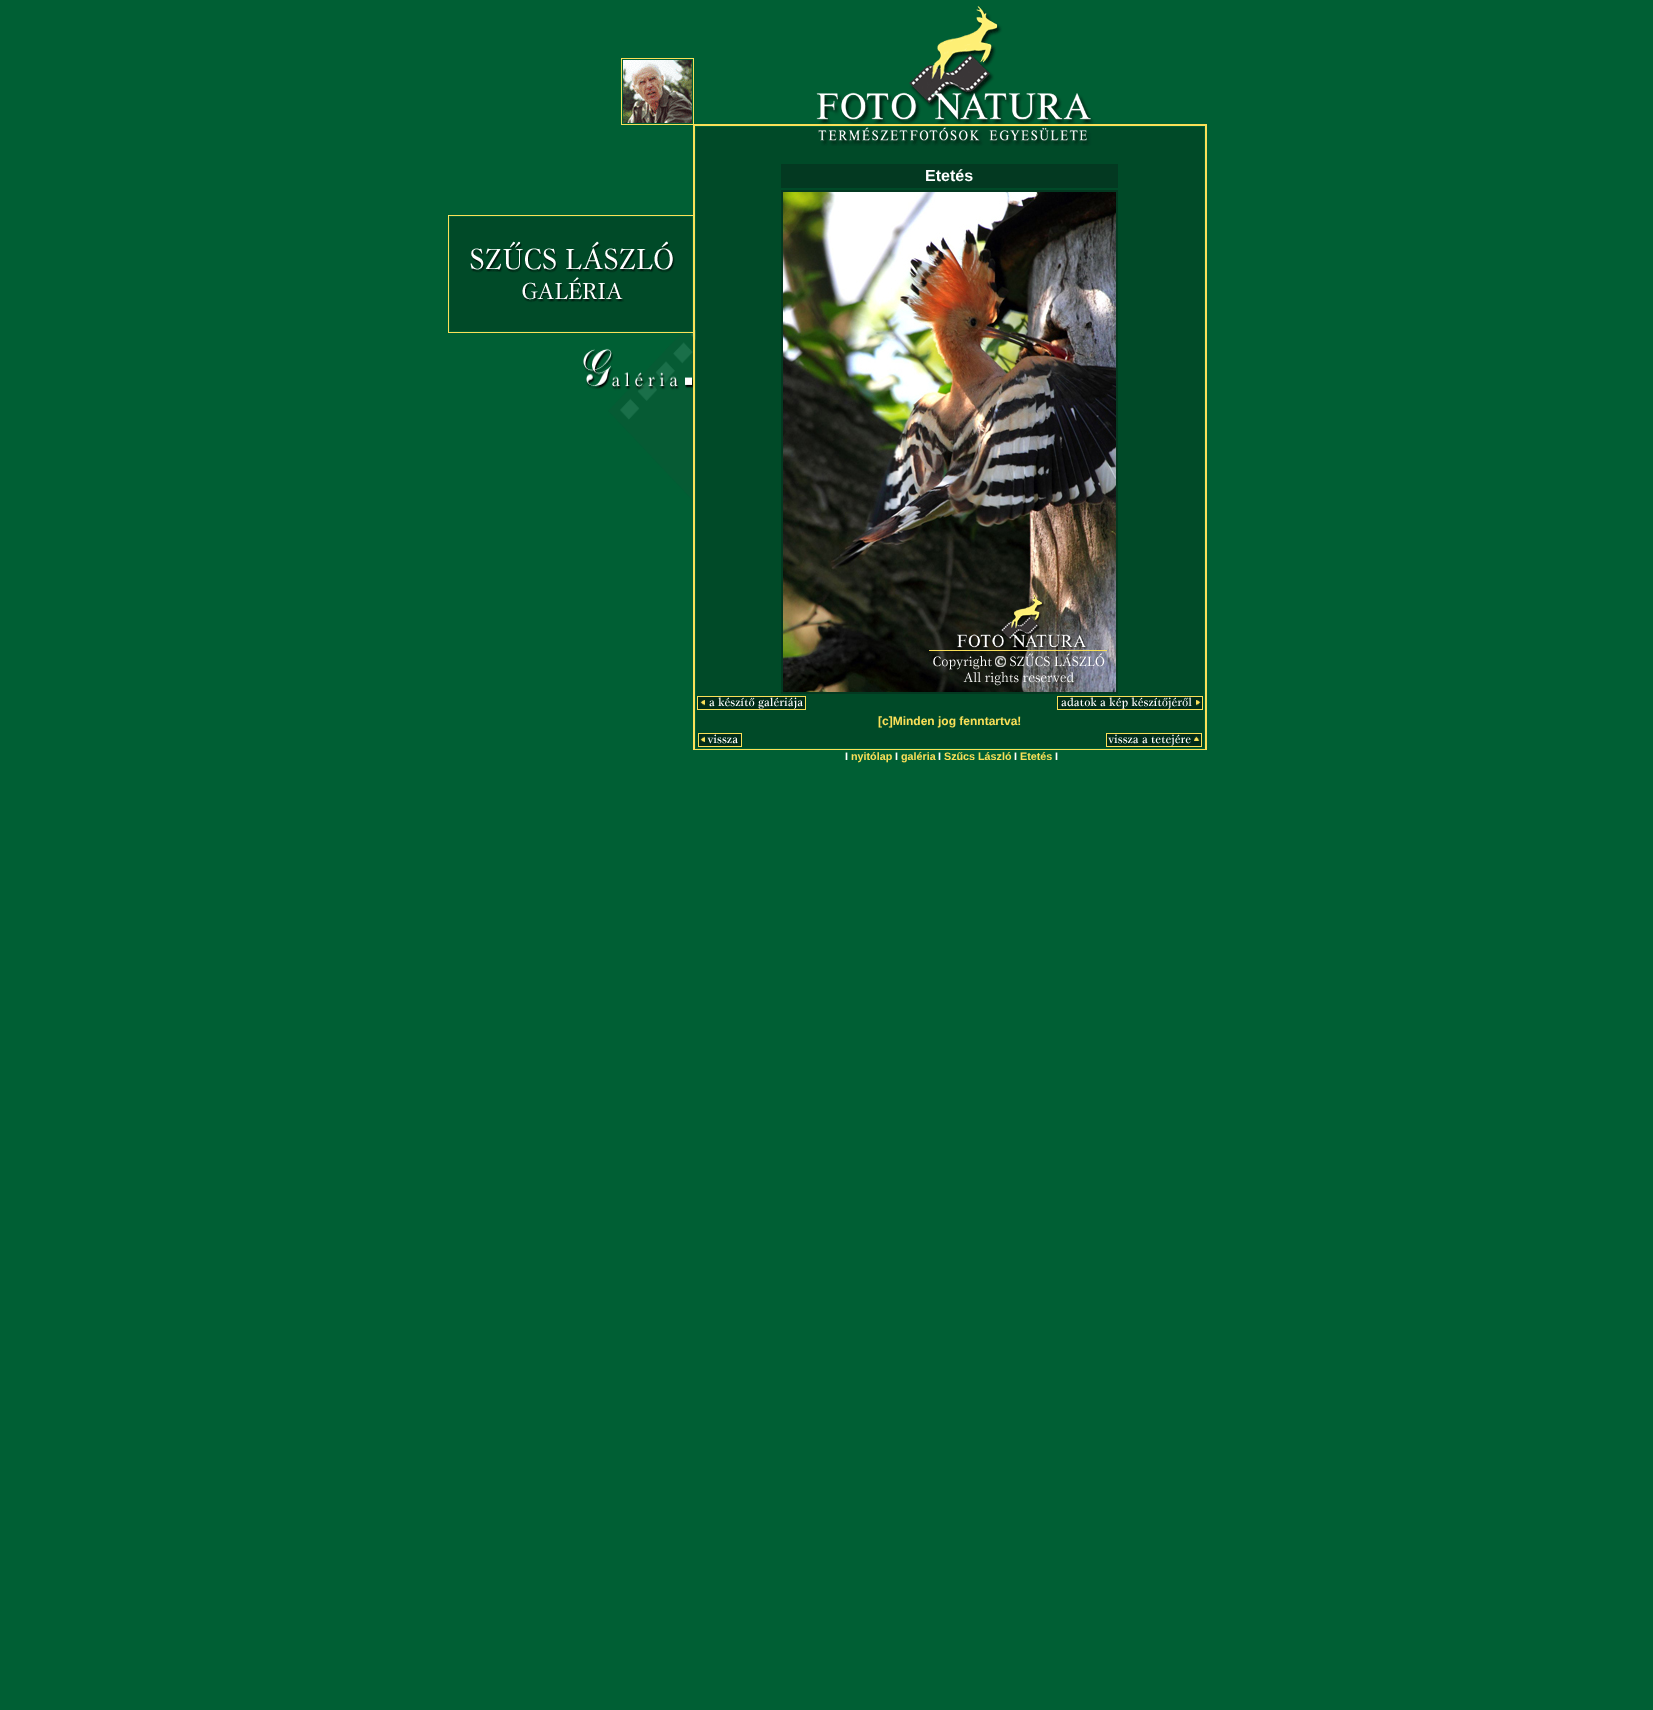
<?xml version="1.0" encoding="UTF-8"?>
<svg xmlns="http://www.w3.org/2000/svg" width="1653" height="1710">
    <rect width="100%" height="100%" fill="#005F34"/>
    <rect x="693" y="502" width="2" height="245" fill="#FAE059"/>
    <image x="448" y="0" width="248" height="333" href="img_01.png"/>
    <image x="583" y="333" width="113" height="169" href="img_02.png"/>
    <image x="696" y="6" width="511" height="140" href="img_03.png"/>
    <rect x="696" y="146" width="508" height="601" fill="#004A28"/>
    <rect x="781" y="164" width="337" height="24" fill="#033921"/>
    <text x="925" y="181" font-family="Liberation Sans" font-size="16" font-weight="700" fill="#FFFFFF">Etetés</text>
    <rect x="781" y="190" width="337" height="2" fill="#033921"/>
    <rect x="781" y="192" width="2" height="502" fill="#033921"/>
    <image x="783" y="192" width="333" height="500" href="img_04.png"/>
    <rect x="1116" y="192" width="2" height="500" fill="#033921"/>
    <rect x="783" y="692" width="335" height="2" fill="#033921"/>
    <image x="697" y="696" width="109" height="14" href="img_05.png"/>
    <image x="1057" y="696" width="146" height="14" href="img_06.png"/>
    <text x="878" y="725" font-family="Liberation Sans" font-size="12" font-weight="700" fill="#FAE059">[c]Minden jog fenntartva!</text>
    <image x="698" y="733" width="44" height="14" href="img_07.png"/>
    <image x="1106" y="733" width="96" height="14" href="img_08.png"/>
    <rect x="1205" y="146" width="2" height="601" fill="#FAE059"/>
    <image x="693" y="747" width="514" height="3" href="img_09.png"/>
    <text x="845" y="760" font-family="Liberation Sans" font-size="10.75" font-weight="700" fill="#FFFFFF">I</text>
    <text x="851" y="760" font-family="Liberation Sans" font-size="10.75" font-weight="700" fill="#FAE059">nyitólap</text>
    <text x="895" y="760" font-family="Liberation Sans" font-size="10.75" font-weight="700" fill="#FFFFFF">I</text>
    <text x="901" y="760" font-family="Liberation Sans" font-size="10.75" font-weight="700" fill="#FAE059">galéria</text>
    <text x="938" y="760" font-family="Liberation Sans" font-size="10.75" font-weight="700" fill="#FFFFFF">I</text>
    <text x="944" y="760" font-family="Liberation Sans" font-size="10.75" font-weight="700" fill="#FAE059">Szűcs László</text>
    <text x="1014" y="760" font-family="Liberation Sans" font-size="10.75" font-weight="700" fill="#FFFFFF">I</text>
    <text x="1020" y="760" font-family="Liberation Sans" font-size="10.75" font-weight="700" fill="#FAE059">Etetés</text>
    <text x="1055" y="760" font-family="Liberation Sans" font-size="10.75" font-weight="700" fill="#FFFFFF">I</text>
</svg>
